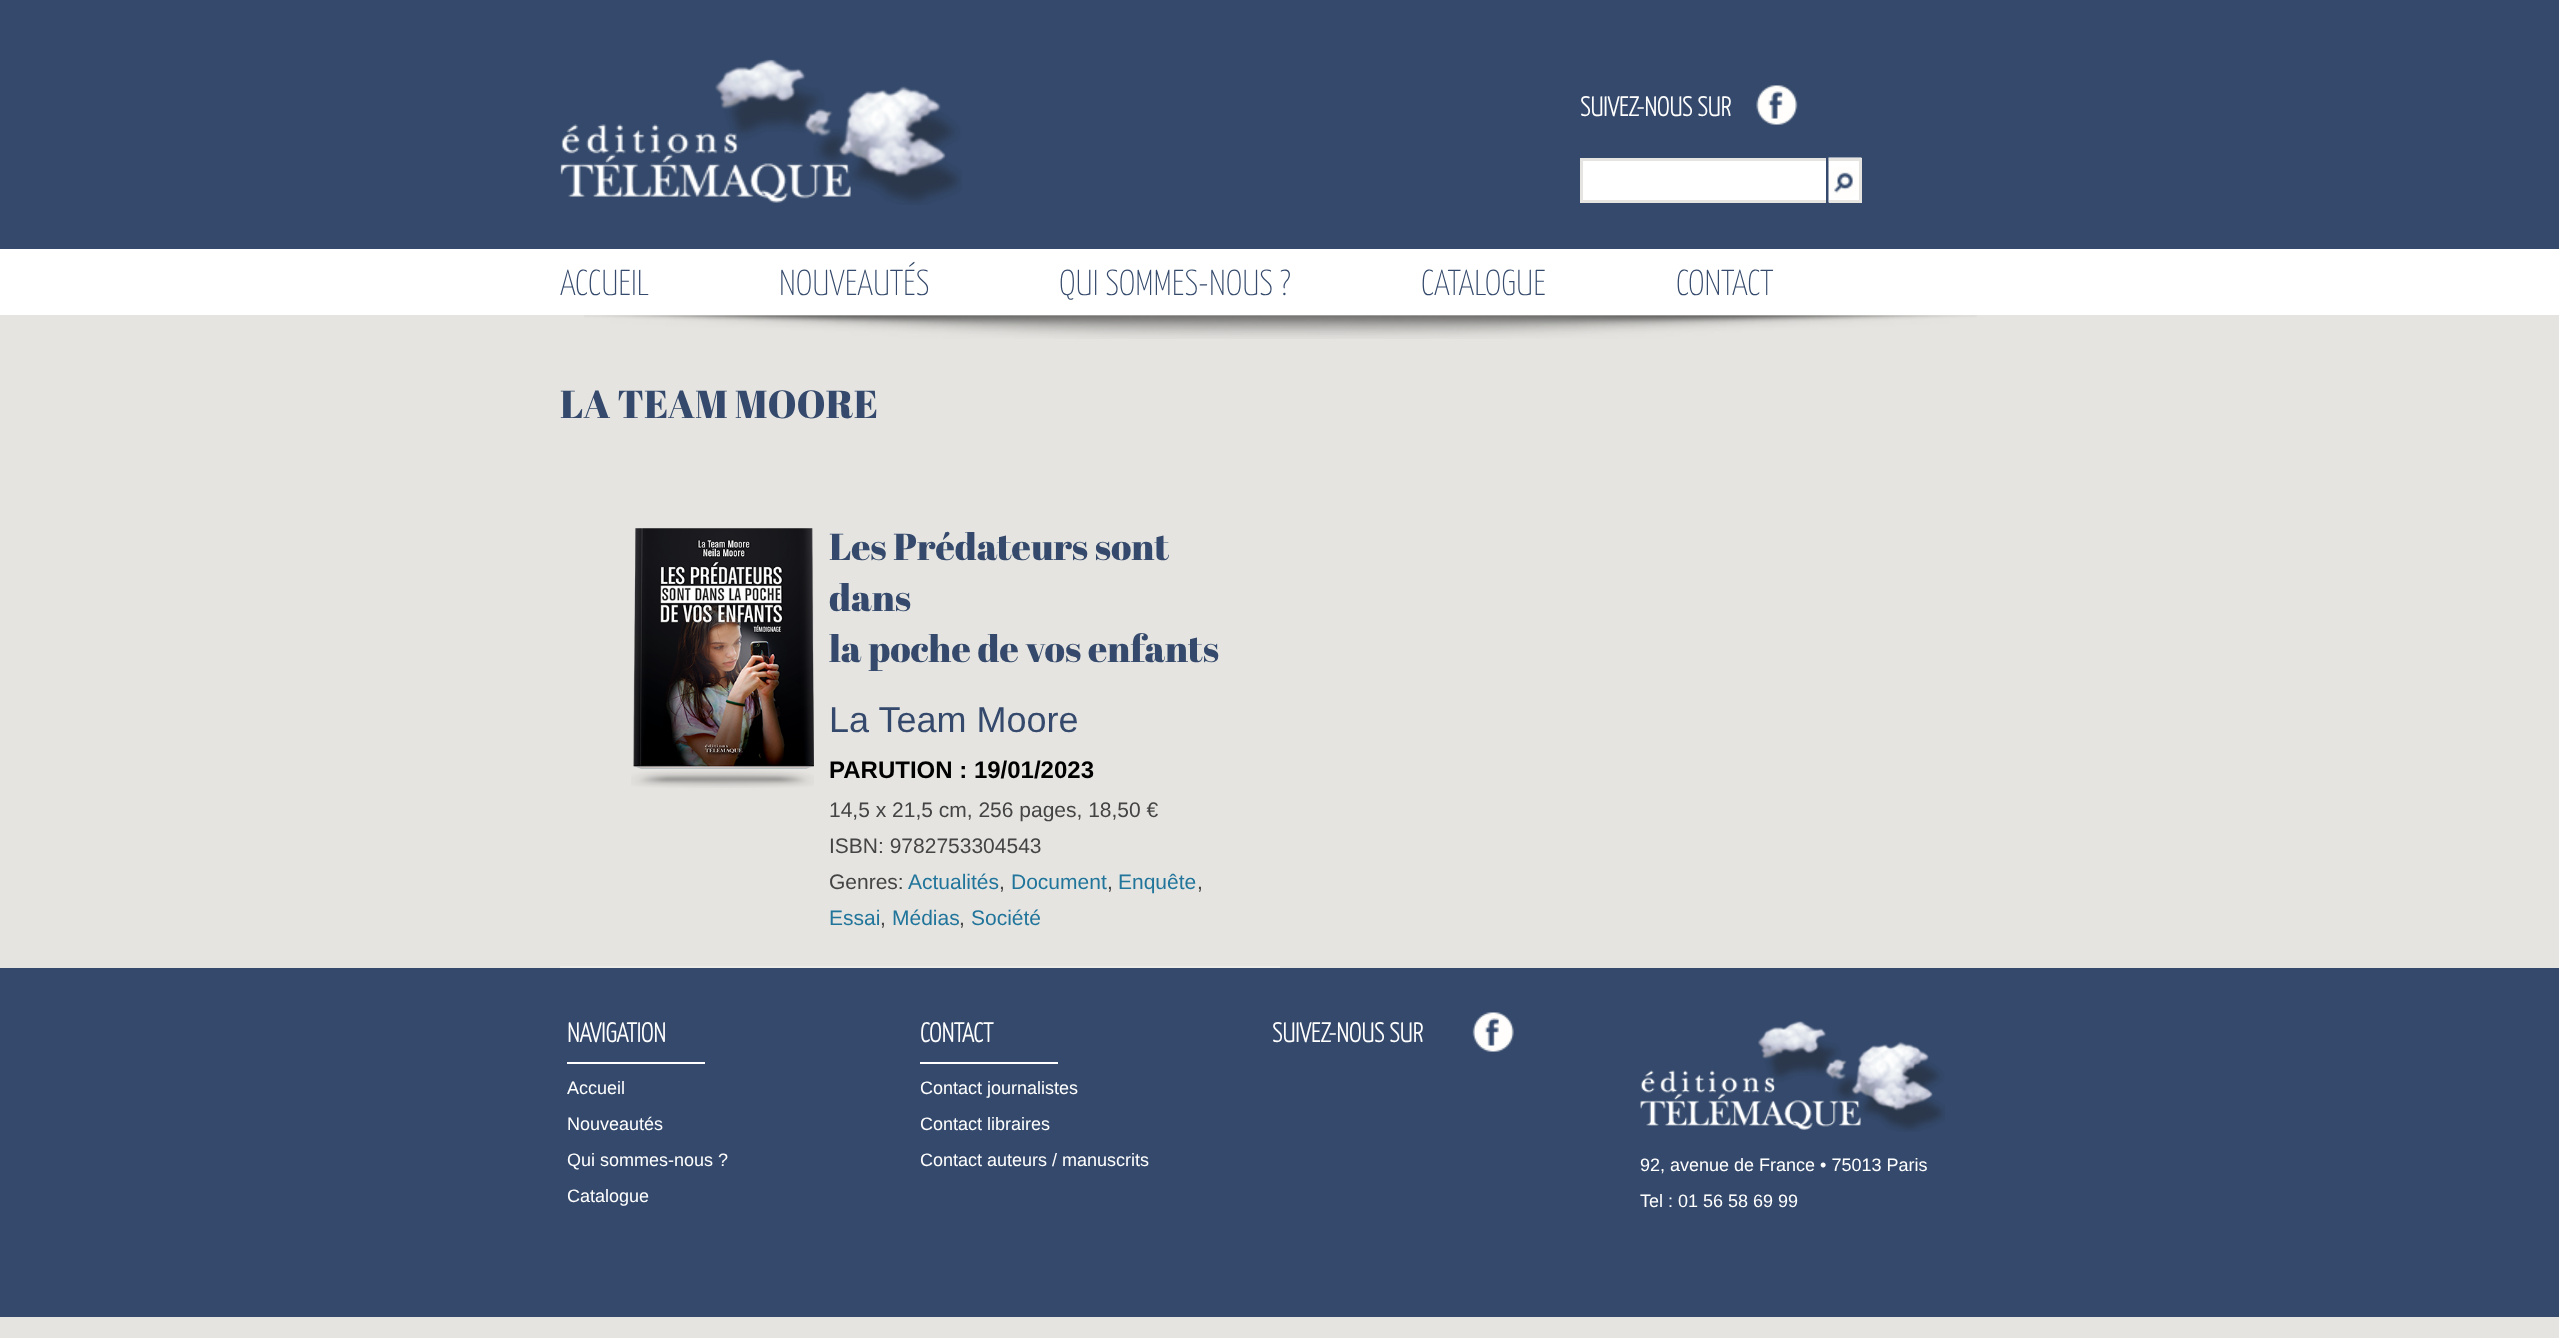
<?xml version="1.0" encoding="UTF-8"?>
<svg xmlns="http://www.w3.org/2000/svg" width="2559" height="1338">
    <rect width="100%" height="100%" fill="#E5E4E1"/>
    <image x="584" y="315" width="1393" height="24" href="img_01.png"/>
    <rect x="0" y="0" width="2559" height="249" fill="#34496B"/>
    <image x="560" y="59" width="402" height="146" href="img_02.png"/>
    <text x="1580" y="116" font-family="Yanone Kaffeesatz" font-size="27" font-weight="700" fill="#FFFFFF">SUIVEZ-NOUS SUR</text>
    <image x="1756" y="85" width="42" height="40" href="img_03.png"/>
    <rect x="1583" y="161" width="243" height="39" fill="#FFFFFF"/>
    <rect x="1580" y="158" width="246" height="3" fill="#E5E4E1"/>
    <rect x="1580" y="200" width="246" height="3" fill="#E5E4E1"/>
    <rect x="1580" y="158" width="3" height="45" fill="#E5E4E1"/>
    <image x="1828" y="157" width="34" height="46" href="img_04.png"/>
    <rect x="1829" y="158" width="33" height="3" fill="#E5E4E1"/>
    <rect x="1859" y="158" width="3" height="45" fill="#E5E4E1"/>
    <rect x="1829" y="200" width="33" height="3" fill="#E5E4E1"/>
    <rect x="0" y="249" width="2559" height="66" fill="#FFFFFF"/>
    <text x="560" y="295" font-family="Yanone Kaffeesatz" font-size="36" font-weight="100" fill="#34496B">ACCUEIL</text>
    <text x="779" y="295" font-family="Yanone Kaffeesatz" font-size="36" font-weight="100" fill="#34496B">NOUVEAUTÉS</text>
    <text x="1059" y="295" font-family="Yanone Kaffeesatz" font-size="36" font-weight="100" fill="#34496B">QUI SOMMES-NOUS ?</text>
    <text x="1421" y="295" font-family="Yanone Kaffeesatz" font-size="36" font-weight="100" fill="#34496B">CATALOGUE</text>
    <text x="1676" y="295" font-family="Yanone Kaffeesatz" font-size="36" font-weight="100" fill="#34496B">CONTACT</text>
    <text x="560" y="418" font-family="Abril Fatface" font-size="39" fill="#34496B">LA TEAM MOORE</text>
    <rect x="560" y="966" width="720" height="2" fill="#EDECE9"/>
    <image x="631" y="528" width="183" height="260" href="img_05.png"/>
    <text font-family="Abril Fatface" font-size="37.5" fill="#34496B">
        <tspan x="829" y="560">Les Prédateurs sont</tspan>
        <tspan x="829" y="611">dans</tspan>
        <tspan x="829" y="662">la poche de vos enfants</tspan>
    </text>
    <text x="829" y="732" font-family="Liberation Sans" font-size="36" fill="#34496B">La Team Moore</text>
    <text x="829" y="778" font-family="Liberation Sans" font-size="24" font-weight="700" fill="#000000">PARUTION : 19/01/2023</text>
    <text font-family="Liberation Sans" font-size="21" fill="#444444">
        <tspan x="829" y="817">14,5 x 21,5 cm, 256 pages, 18,50 €</tspan>
        <tspan x="829" y="853">ISBN: 9782753304543</tspan>
        <tspan x="829" y="889">Genres:</tspan>
    </text>
    <text x="908" y="889" font-family="Liberation Sans" font-size="21" fill="#21759B">Actualités</text>
    <text x="999" y="889" font-family="Liberation Sans" font-size="21" fill="#444444">,</text>
    <text x="1011" y="889" font-family="Liberation Sans" font-size="21" fill="#21759B">Document</text>
    <text x="1107" y="889" font-family="Liberation Sans" font-size="21" fill="#444444">,</text>
    <text x="1118" y="889" font-family="Liberation Sans" font-size="21" fill="#21759B">Enquête</text>
    <text x="1197" y="889" font-family="Liberation Sans" font-size="21" fill="#444444">,</text>
    <text x="829" y="925" font-family="Liberation Sans" font-size="21" fill="#21759B">Essai</text>
    <text x="880" y="925" font-family="Liberation Sans" font-size="21" fill="#444444">,</text>
    <text x="892" y="925" font-family="Liberation Sans" font-size="21" fill="#21759B">Médias</text>
    <text x="959" y="925" font-family="Liberation Sans" font-size="21" fill="#444444">,</text>
    <text x="971" y="925" font-family="Liberation Sans" font-size="21" fill="#21759B">Société</text>
    <rect x="0" y="968" width="2559" height="349" fill="#34496B"/>
    <rect x="567" y="1062" width="138" height="2" fill="#FFFFFF"/>
    <text x="567" y="1042" font-family="Yanone Kaffeesatz" font-size="27" font-weight="700" fill="#FFFFFF">NAVIGATION</text>
    <text x="567" y="1094" font-family="Liberation Sans" font-size="18" fill="#FFFFFF">Accueil</text>
    <text x="567" y="1130" font-family="Liberation Sans" font-size="18" fill="#FFFFFF">Nouveautés</text>
    <text x="567" y="1166" font-family="Liberation Sans" font-size="18" fill="#FFFFFF">Qui sommes-nous ?</text>
    <text x="567" y="1202" font-family="Liberation Sans" font-size="18" fill="#FFFFFF">Catalogue</text>
    <rect x="920" y="1062" width="138" height="2" fill="#FFFFFF"/>
    <text x="920" y="1042" font-family="Yanone Kaffeesatz" font-size="27" font-weight="700" fill="#FFFFFF">CONTACT</text>
    <text x="920" y="1094" font-family="Liberation Sans" font-size="18" fill="#FFFFFF">Contact journalistes</text>
    <text x="920" y="1130" font-family="Liberation Sans" font-size="18" fill="#FFFFFF">Contact libraires</text>
    <text x="920" y="1166" font-family="Liberation Sans" font-size="18" fill="#FFFFFF">Contact auteurs / manuscrits</text>
    <text x="1272" y="1042" font-family="Yanone Kaffeesatz" font-size="27" font-weight="700" fill="#FFFFFF">SUIVEZ-NOUS SUR</text>
    <image x="1472" y="1012" width="42" height="40" href="img_06.png"/>
    <image x="1640" y="1021" width="305" height="111" href="img_07.png"/>
    <text x="1640" y="1171" font-family="Liberation Sans" font-size="18" fill="#FFFFFF">92, avenue de France • 75013 Paris</text>
    <text x="1640" y="1207" font-family="Liberation Sans" font-size="18" fill="#FFFFFF">Tel : 01 56 58 69 99</text>
</svg>
